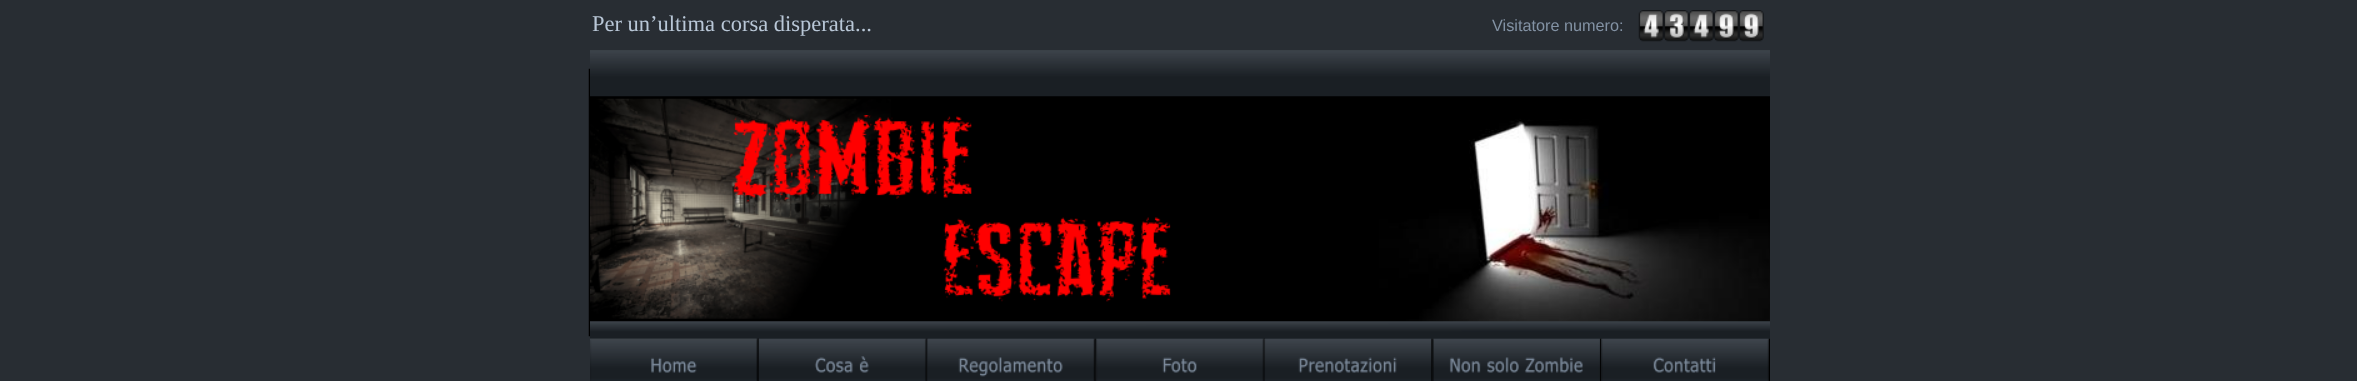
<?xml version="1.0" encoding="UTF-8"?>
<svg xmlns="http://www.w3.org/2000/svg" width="2357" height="381">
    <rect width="100%" height="100%" fill="#282D33"/>
    <text x="592" y="31" font-family="Liberation Serif" font-size="22.5" fill="#B9C7D7">Per un’ultima corsa disperata...</text>
    <text x="1492" y="31" font-family="Liberation Sans" font-size="16.25" fill="#8392A4">Visitatore numero:</text>
    <image x="1638" y="10" width="126" height="32" href="img_01.png"/>
    <image x="588" y="68" width="1182" height="269" href="img_03.png"/>
    <image x="590" y="50" width="1180" height="47" href="img_02.png"/>
    <image x="590" y="98" width="301" height="221" href="img_04.png"/>
    <image x="733" y="115" width="438" height="187" href="img_05.png"/>
    <image x="590" y="321" width="1180" height="18" href="img_06.png"/>
    <image x="590" y="338" width="169" height="43" href="img_07.png"/>
    <image x="590" y="338" width="169" height="43" href="img_08.png"/>
    <image x="758" y="338" width="170" height="43" href="img_09.png"/>
    <image x="1096" y="338" width="169" height="43" href="img_11.png"/>
    <image x="926" y="338" width="171" height="43" href="img_10.png"/>
    <image x="1432" y="338" width="171" height="43" href="img_13.png"/>
    <image x="1264" y="338" width="170" height="43" href="img_12.png"/>
    <image x="1601" y="338" width="169" height="43" href="img_14.png"/>
</svg>
